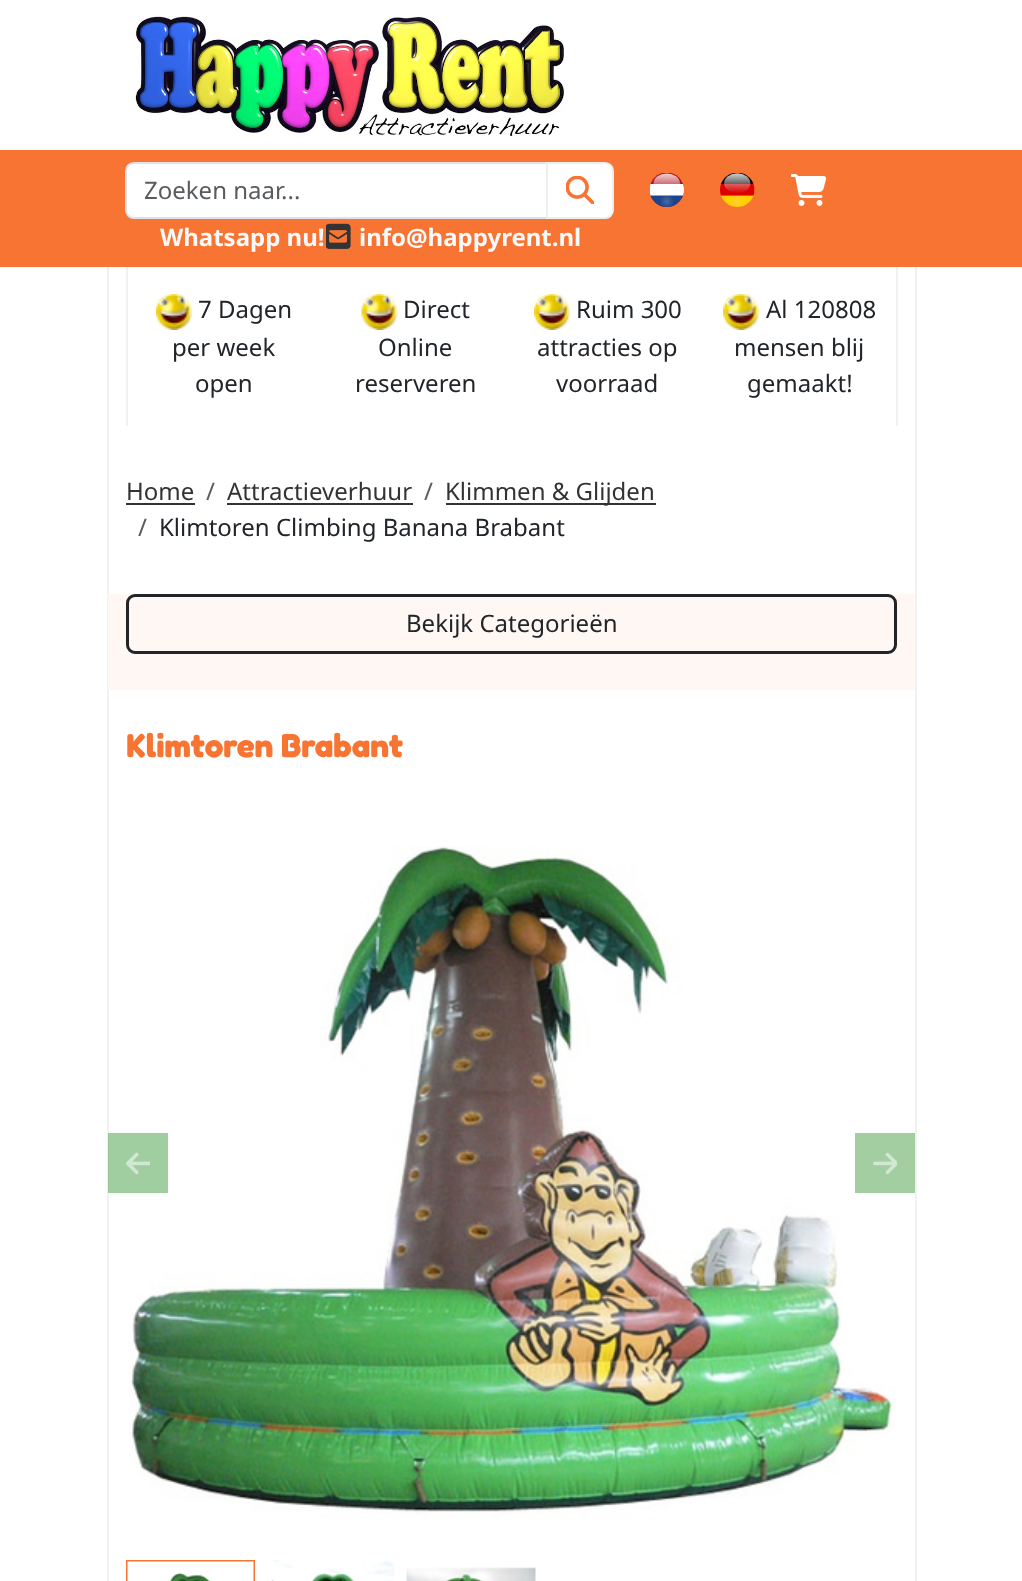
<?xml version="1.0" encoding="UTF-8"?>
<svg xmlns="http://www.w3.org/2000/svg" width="1022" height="1581">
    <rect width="100%" height="100%" fill="#FFFFFF"/>
    <image x="135" y="15" width="430" height="121" href="img_01.png"/>
    <rect x="0" y="150" width="1022" height="117" fill="#F87433"/>
    <path d="M 134 163 H 547 V 218 H 134 C 129.5 218 126 214.5 126 210 V 171 C 126 166.5 129.5 163 134 163 Z" fill="#FFFFFF" stroke="#DEE2E6" stroke-width="2"/>
    <text x="144" y="199" font-family="Noto Sans" font-size="24" fill="#595C5F">Zoeken naar...</text>
    <path d="M 547 163 H 605 C 609.5 163 613 166.5 613 171 V 210 C 613 214.5 609.5 218 605 218 H 547 Z" fill="#FFFFFF" stroke="#EEEEEE" stroke-width="2"/>
    <image x="566" y="176" width="28" height="28" href="img_02.png"/>
    <image x="650" y="173" width="34" height="34" href="img_03.png"/>
    <image x="720" y="173" width="35" height="34" href="img_04.png"/>
    <image x="791" y="174" width="36" height="32" href="img_05.png"/>
    <text x="160" y="246" font-family="Noto Sans" font-size="24" font-weight="700" fill="#F8F9FA">Whatsapp nu!</text>
    <image x="326" y="223" width="25" height="26" href="img_06.png"/>
    <text x="359" y="246" font-family="Noto Sans" font-size="24" font-weight="700" fill="#F8F9FA">info@happyrent.nl</text>
    <rect x="915" y="267" width="2" height="1314" fill="#F1F1F1"/>
    <rect x="107" y="267" width="2" height="1314" fill="#F1F1F1"/>
    <rect x="896" y="267" width="2" height="159" fill="#F1F1F1"/>
    <rect x="126" y="267" width="2" height="159" fill="#F1F1F1"/>
    <image x="156" y="294" width="36" height="36" href="img_07.png"/>
    <text x="198" y="318" font-family="Noto Sans" font-size="24" fill="#212529">7 Dagen</text>
    <text x="172" y="356" font-family="Noto Sans" font-size="24" fill="#212529">per week</text>
    <text x="195" y="392" font-family="Noto Sans" font-size="24" fill="#212529">open</text>
    <image x="361" y="294" width="37" height="36" href="img_08.png"/>
    <text x="403" y="318" font-family="Noto Sans" font-size="24" fill="#212529">Direct</text>
    <text x="378" y="356" font-family="Noto Sans" font-size="24" fill="#212529">Online</text>
    <text x="355" y="392" font-family="Noto Sans" font-size="24" fill="#212529">reserveren</text>
    <image x="534" y="294" width="36" height="36" href="img_09.png"/>
    <text x="576" y="318" font-family="Noto Sans" font-size="24" fill="#212529">Ruim 300</text>
    <text x="537" y="356" font-family="Noto Sans" font-size="24" fill="#212529">attracties op</text>
    <text x="556" y="392" font-family="Noto Sans" font-size="24" fill="#212529">voorraad</text>
    <image x="723" y="294" width="36" height="36" href="img_07.png"/>
    <text x="766" y="318" font-family="Noto Sans" font-size="24" fill="#212529">Al 120808</text>
    <text x="734" y="356" font-family="Noto Sans" font-size="24" fill="#212529">mensen blij</text>
    <text x="747" y="392" font-family="Noto Sans" font-size="24" fill="#212529">gemaakt!</text>
    <text x="126" y="500" font-family="Noto Sans" font-size="24" fill="#333333">Home</text>
    <rect x="126" y="503" width="69" height="2" fill="#333333"/>
    <text x="206" y="500" font-family="Noto Sans" font-size="24" fill="#595C5F">/</text>
    <text x="227" y="500" font-family="Noto Sans" font-size="24" fill="#333333">Attractieverhuur</text>
    <rect x="227" y="503" width="186" height="2" fill="#333333"/>
    <text x="424" y="500" font-family="Noto Sans" font-size="24" fill="#595C5F">/</text>
    <rect x="446" y="503" width="210" height="2" fill="#333333"/>
    <text x="445" y="500" font-family="Noto Sans" font-size="24" fill="#333333">Klimmen &amp; Glijden</text>
    <text x="138" y="536" font-family="Noto Sans" font-size="24" fill="#595C5F">/</text>
    <text x="159" y="536" font-family="Noto Sans" font-size="24" fill="#212529">Klimtoren Climbing Banana Brabant</text>
    <rect x="108" y="594" width="807" height="96" fill="#FFF7F3"/>
    <rect x="127.5" y="595.5" width="768" height="57" rx="7.5" fill="none" stroke="#212529" stroke-width="3"/>
    <text x="406" y="632" font-family="Noto Sans" font-size="24" fill="#212529">Bekijk Categorieën</text>
    <text x="126" y="757" font-family="Fredoka" font-size="33.25" font-weight="300" fill="#F87433">Klimtoren Brabant</text>
    <image x="129" y="846" width="768" height="675" href="img_10.png"/>
    <rect x="108" y="1133" width="60" height="60" fill="#449D44" fill-opacity="0.5"/>
    <image x="126" y="1152" width="24" height="23" href="img_11.png"/>
    <rect x="855" y="1133" width="60" height="60" fill="#A2CEA2"/>
    <image x="873" y="1152" width="24" height="23" href="img_12.png"/>
    <rect x="127" y="1561" width="127" height="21" fill="none" stroke="#F87433" stroke-width="2"/>
    <image x="127" y="1561" width="127" height="20" href="img_13.png"/>
    <image x="267" y="1560" width="128" height="21" href="img_14.png"/>
    <image x="406" y="1567" width="130" height="14" href="img_15.png"/>
</svg>
